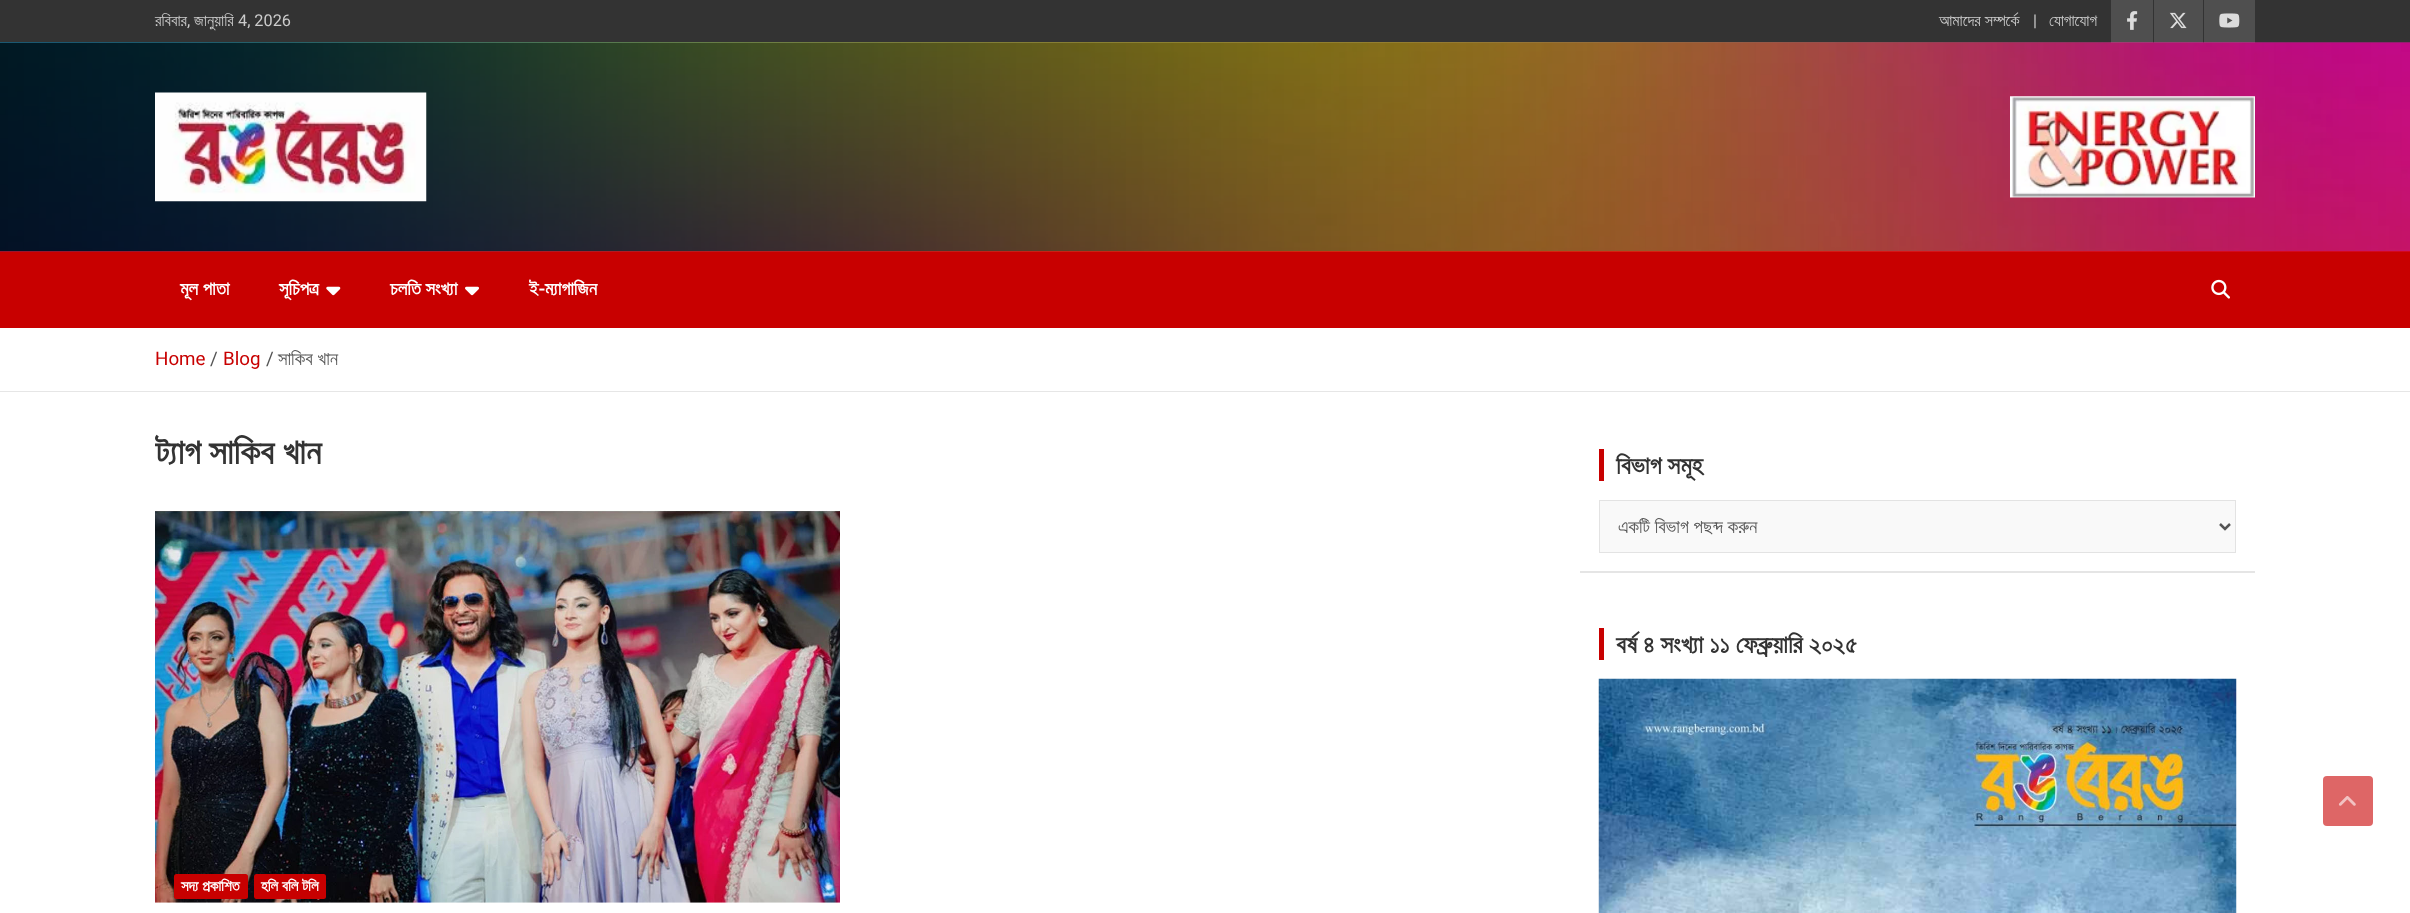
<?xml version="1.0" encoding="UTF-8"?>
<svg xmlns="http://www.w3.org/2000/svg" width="2410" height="913">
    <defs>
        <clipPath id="clip1"><rect x="155" y="430" width="1388" height="46"/></clipPath>
        <clipPath id="clip2"><rect x="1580" y="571" width="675" height="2"/></clipPath>
        <filter id="blur1" x="-50%" y="-200%" width="200%" height="500%"><feGaussianBlur stdDeviation="0.5"/></filter>
    </defs>
    <rect width="100%" height="100%" fill="#FFFFFF"/>
    <rect x="0" y="0" width="2410" height="43" fill="#333333"/>
    <text x="155" y="26" font-family="FreeSans" font-size="16.25" fill="#CCCCCC">রবিবার</text>
    <text x="187" y="26" font-family="Roboto" font-size="16.25" fill="#CCCCCC">,</text>
    <text x="194" y="26" font-family="FreeSans" font-size="16.25" fill="#CCCCCC">জানুয়ারি</text>
    <text x="238" y="26" font-family="Roboto" font-size="16.25" fill="#CCCCCC">4, 2026</text>
    <text x="1939" y="26" font-family="FreeSans" font-size="16.25" fill="#CCCCCC">আমাদের সম্পর্কে</text>
    <text x="2033" y="26" font-family="Roboto" font-size="16.25" fill="#CCCCCC">|</text>
    <text x="2049" y="26" font-family="FreeSans" font-size="16.25" fill="#CCCCCC">যোগাযোগ</text>
    <rect x="2111" y="0" width="42" height="43" fill="#4F4F4F"/>
    <image x="2127" y="11" width="11" height="19" href="img_01.png"/>
    <rect x="2154" y="0" width="49" height="43" fill="#4F4F4F"/>
    <image x="2169" y="12" width="18" height="17" href="img_02.png"/>
    <rect x="2204" y="0" width="51" height="43" fill="#4F4F4F"/>
    <image x="2219" y="13" width="21" height="15" href="img_03.png"/>
    <rect x="0" y="251" width="2410" height="77" fill="#C80000"/>
    <image x="0" y="42" width="2410" height="210" href="img_04.png"/>
    <image x="155" y="92" width="272" height="110" href="img_05.png"/>
    <image x="2010" y="96" width="245" height="102" href="img_06.png"/>
    <text x="180" y="295" font-family="FreeSans" font-size="18.75" font-weight="700" fill="#FFFFFF">মূল পাতা</text>
    <text x="279" y="295" font-family="FreeSans" font-size="18.75" font-weight="700" fill="#FFFFFF">সূচিপত্র</text>
    <image x="326" y="286" width="15" height="10" href="img_07.png"/>
    <text x="390" y="295" font-family="FreeSans" font-size="18.75" font-weight="700" fill="#FFFFFF">চলতি সংখ্যা</text>
    <image x="465" y="286" width="14" height="10" href="img_08.png"/>
    <text x="529" y="295" font-family="FreeSans" font-size="18.75" font-weight="700" fill="#FFFFFF">ই-ম্যাগাজিন</text>
    <image x="2211" y="279" width="19" height="20" href="img_09.png"/>
    <rect x="0" y="391" width="2410" height="1" fill="#E6E6E6"/>
    <text x="155" y="365" font-family="Roboto" font-size="18.75" fill="#C80000">Home</text>
    <text x="210" y="365" font-family="Roboto" font-size="18.75" fill="#555555">/</text>
    <text x="223" y="365" font-family="Roboto" font-size="18.75" fill="#C80000">Blog</text>
    <text x="266" y="365" font-family="Roboto" font-size="18.75" fill="#555555">/</text>
    <text x="278" y="365" font-family="FreeSans" font-size="18.75" fill="#555555">সাকিব খান</text>
    <g clip-path="url(#clip1)">
        <text x="155" y="464" font-family="FreeSans" font-size="35" font-weight="700" fill="#333333">ট্যাগ</text>
    </g>
    <text x="209" y="464" font-family="FreeSans" font-size="35" font-weight="700" fill="#333333">সাকিব খান</text>
    <image x="155" y="501" width="685" height="410" href="img_10.png"/>
    <rect x="174" y="874" width="74" height="25" rx="2.5" fill="#C80000"/>
    <text x="181" y="891" font-family="FreeSans" font-size="15" font-weight="700" fill="#FFFFFF">সদ্য প্রকাশিত</text>
    <rect x="254" y="874" width="72" height="25" rx="2.5" fill="#C80000"/>
    <text x="261" y="891" font-family="FreeSans" font-size="15" font-weight="700" fill="#FFFFFF">হলি বলি টলি</text>
    <g clip-path="url(#clip2)">
        <rect x="1580" y="431" width="675" height="142" fill="#000000" fill-opacity="0.1" filter="url(#blur1)"/>
    </g>
    <rect x="1599" y="449" width="5" height="32" fill="#C80000"/>
    <text x="1616" y="474" font-family="FreeSans" font-size="25" font-weight="700" fill="#333333">বিভাগ সমূহ</text>
    <rect x="1599.5" y="500.5" width="636" height="52" fill="#F9F9F9" stroke="#E3E3E3"/>
    <path d="M 2220 524 L 2225 529 L 2230 524" fill="none" stroke="#555555" stroke-width="2.5"/>
    <text x="1618" y="533" font-family="FreeSans" font-size="18.75" fill="#555555">একটি বিভাগ পছন্দ করুন</text>
    <rect x="1599" y="628" width="5" height="32" fill="#C80000"/>
    <text x="1616" y="653" font-family="FreeSans" font-size="25" font-weight="700" fill="#333333">বর্ষ ৪ সংখ্যা ১১ ফেব্রুয়ারি ২০২৫</text>
    <image x="1598" y="678" width="639" height="235" href="img_11.png"/>
    <rect x="2323" y="776" width="50" height="50" rx="4" fill="#DE6666"/>
    <image x="2338" y="796" width="18" height="10" href="img_12.png"/>
</svg>
